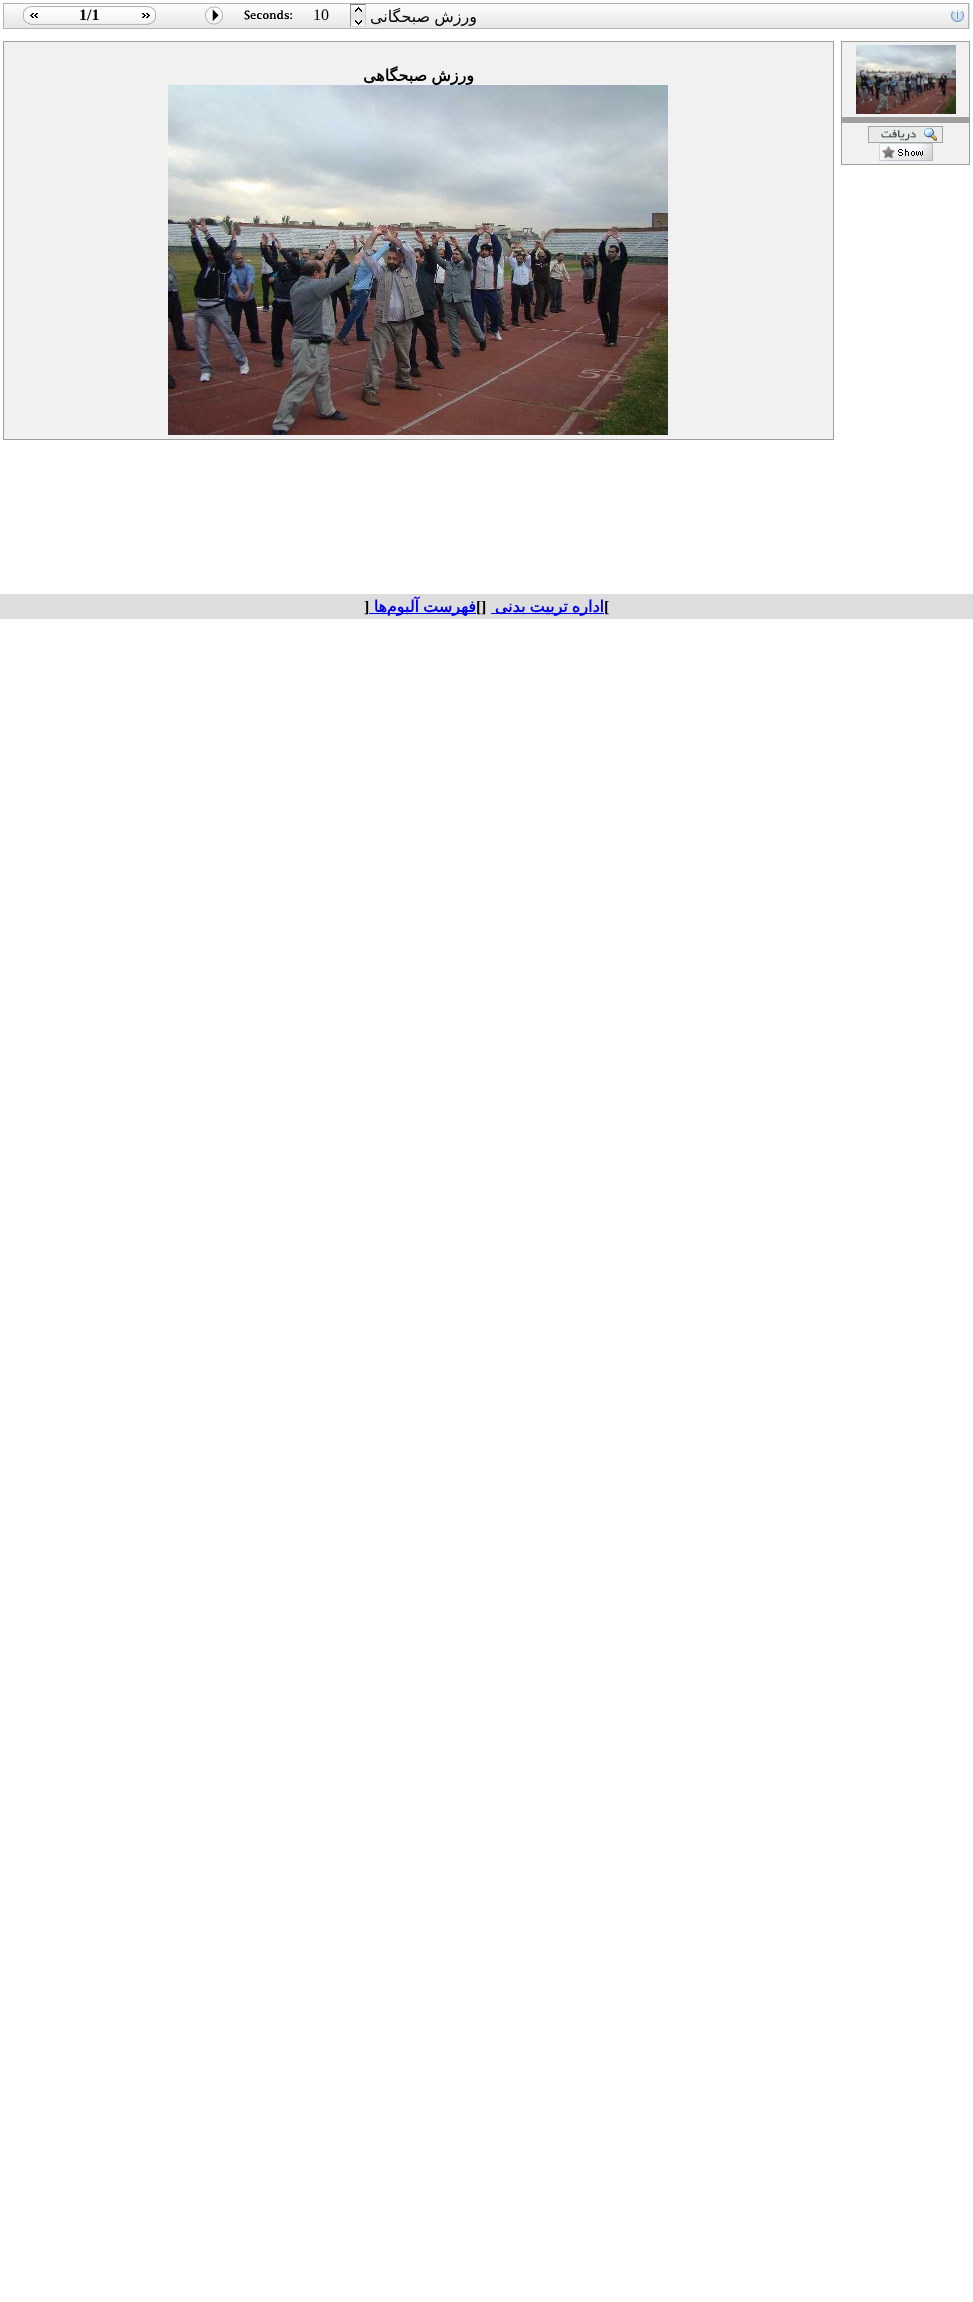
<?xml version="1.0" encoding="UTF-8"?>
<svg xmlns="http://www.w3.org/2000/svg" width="973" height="2302">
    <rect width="100%" height="100%" fill="#FFFFFF"/>
    <image x="3" y="3" width="948" height="26" href="img_01.png"/>
    <image x="951" y="3" width="19" height="26" href="img_02.png"/>
    <text x="477" y="22" word-spacing="-1" font-family="DejaVu Sans" font-size="16" direction="rtl" fill="#000000">ورزش صبحگانی</text>
    <image x="350" y="4" width="16" height="12" href="img_03.png"/>
    <image x="350" y="16" width="16" height="11" href="img_04.png"/>
    <text x="313" y="20" font-family="Liberation Serif" font-size="16" fill="#000000">10</text>
    <image x="244" y="10" width="48" height="10" href="img_05.png"/>
    <image x="205" y="6" width="18" height="19" href="img_06.png"/>
    <image x="138" y="6" width="18" height="19" href="img_07.png"/>
    <image x="41" y="6" width="97" height="19" href="img_08.png"/>
    <text x="79" y="20" font-family="Liberation Serif" font-size="16" font-weight="700" fill="#000000">1/1</text>
    <image x="23" y="6" width="18" height="19" href="img_09.png"/>
    <rect x="3" y="4" width="1" height="24" fill="#B1B2B1"/>
    <rect x="841.5" y="41.5" width="128" height="123" fill="#F2F1F1" stroke="#9F9F9F"/>
    <image x="856" y="45" width="100" height="69" href="img_10.png"/>
    <rect x="842" y="117" width="127" height="6" fill="#9F9F9F"/>
    <image x="868" y="126" width="75" height="17" href="img_11.png"/>
    <image x="879" y="143" width="54" height="18" href="img_12.png"/>
    <rect x="3.5" y="41.5" width="830" height="398" fill="#F2F1F1" stroke="#9F9F9F"/>
    <text x="474" y="81" word-spacing="-1" font-family="DejaVu Sans" font-size="16" font-weight="700" direction="rtl" fill="#000000">ورزش صبحگاهی</text>
    <image x="168" y="85" width="500" height="350" href="img_13.png"/>
    <rect x="0" y="594" width="973" height="25" fill="#DDDDDD"/>
    <text x="604" y="612" font-family="Liberation Serif" font-size="16" font-weight="700" fill="#000000">[</text>
    <rect x="491" y="613" width="113" height="1" fill="#0000EE"/>
    <text x="604" y="612" word-spacing="-1" font-family="DejaVu Sans" font-size="16" font-weight="700" direction="rtl" fill="#0000EE">اداره تربیت بدنی</text>
    <text x="481" y="612" font-family="Liberation Serif" font-size="16" font-weight="700" fill="#000000">]</text>
    <text x="476" y="612" font-family="Liberation Serif" font-size="16" font-weight="700" fill="#000000">[</text>
    <rect x="369" y="613" width="107" height="1" fill="#0000EE"/>
    <text x="476" y="612" word-spacing="-1" font-family="DejaVu Sans" font-size="16" font-weight="700" direction="rtl" fill="#0000EE">فهرست آلبوم</text>
    <text x="387" y="612" font-family="DejaVu Sans" font-size="16" font-weight="700" direction="rtl" fill="#0000EE">ها</text>
    <text x="364" y="612" font-family="Liberation Serif" font-size="16" font-weight="700" fill="#000000">]</text>
</svg>
